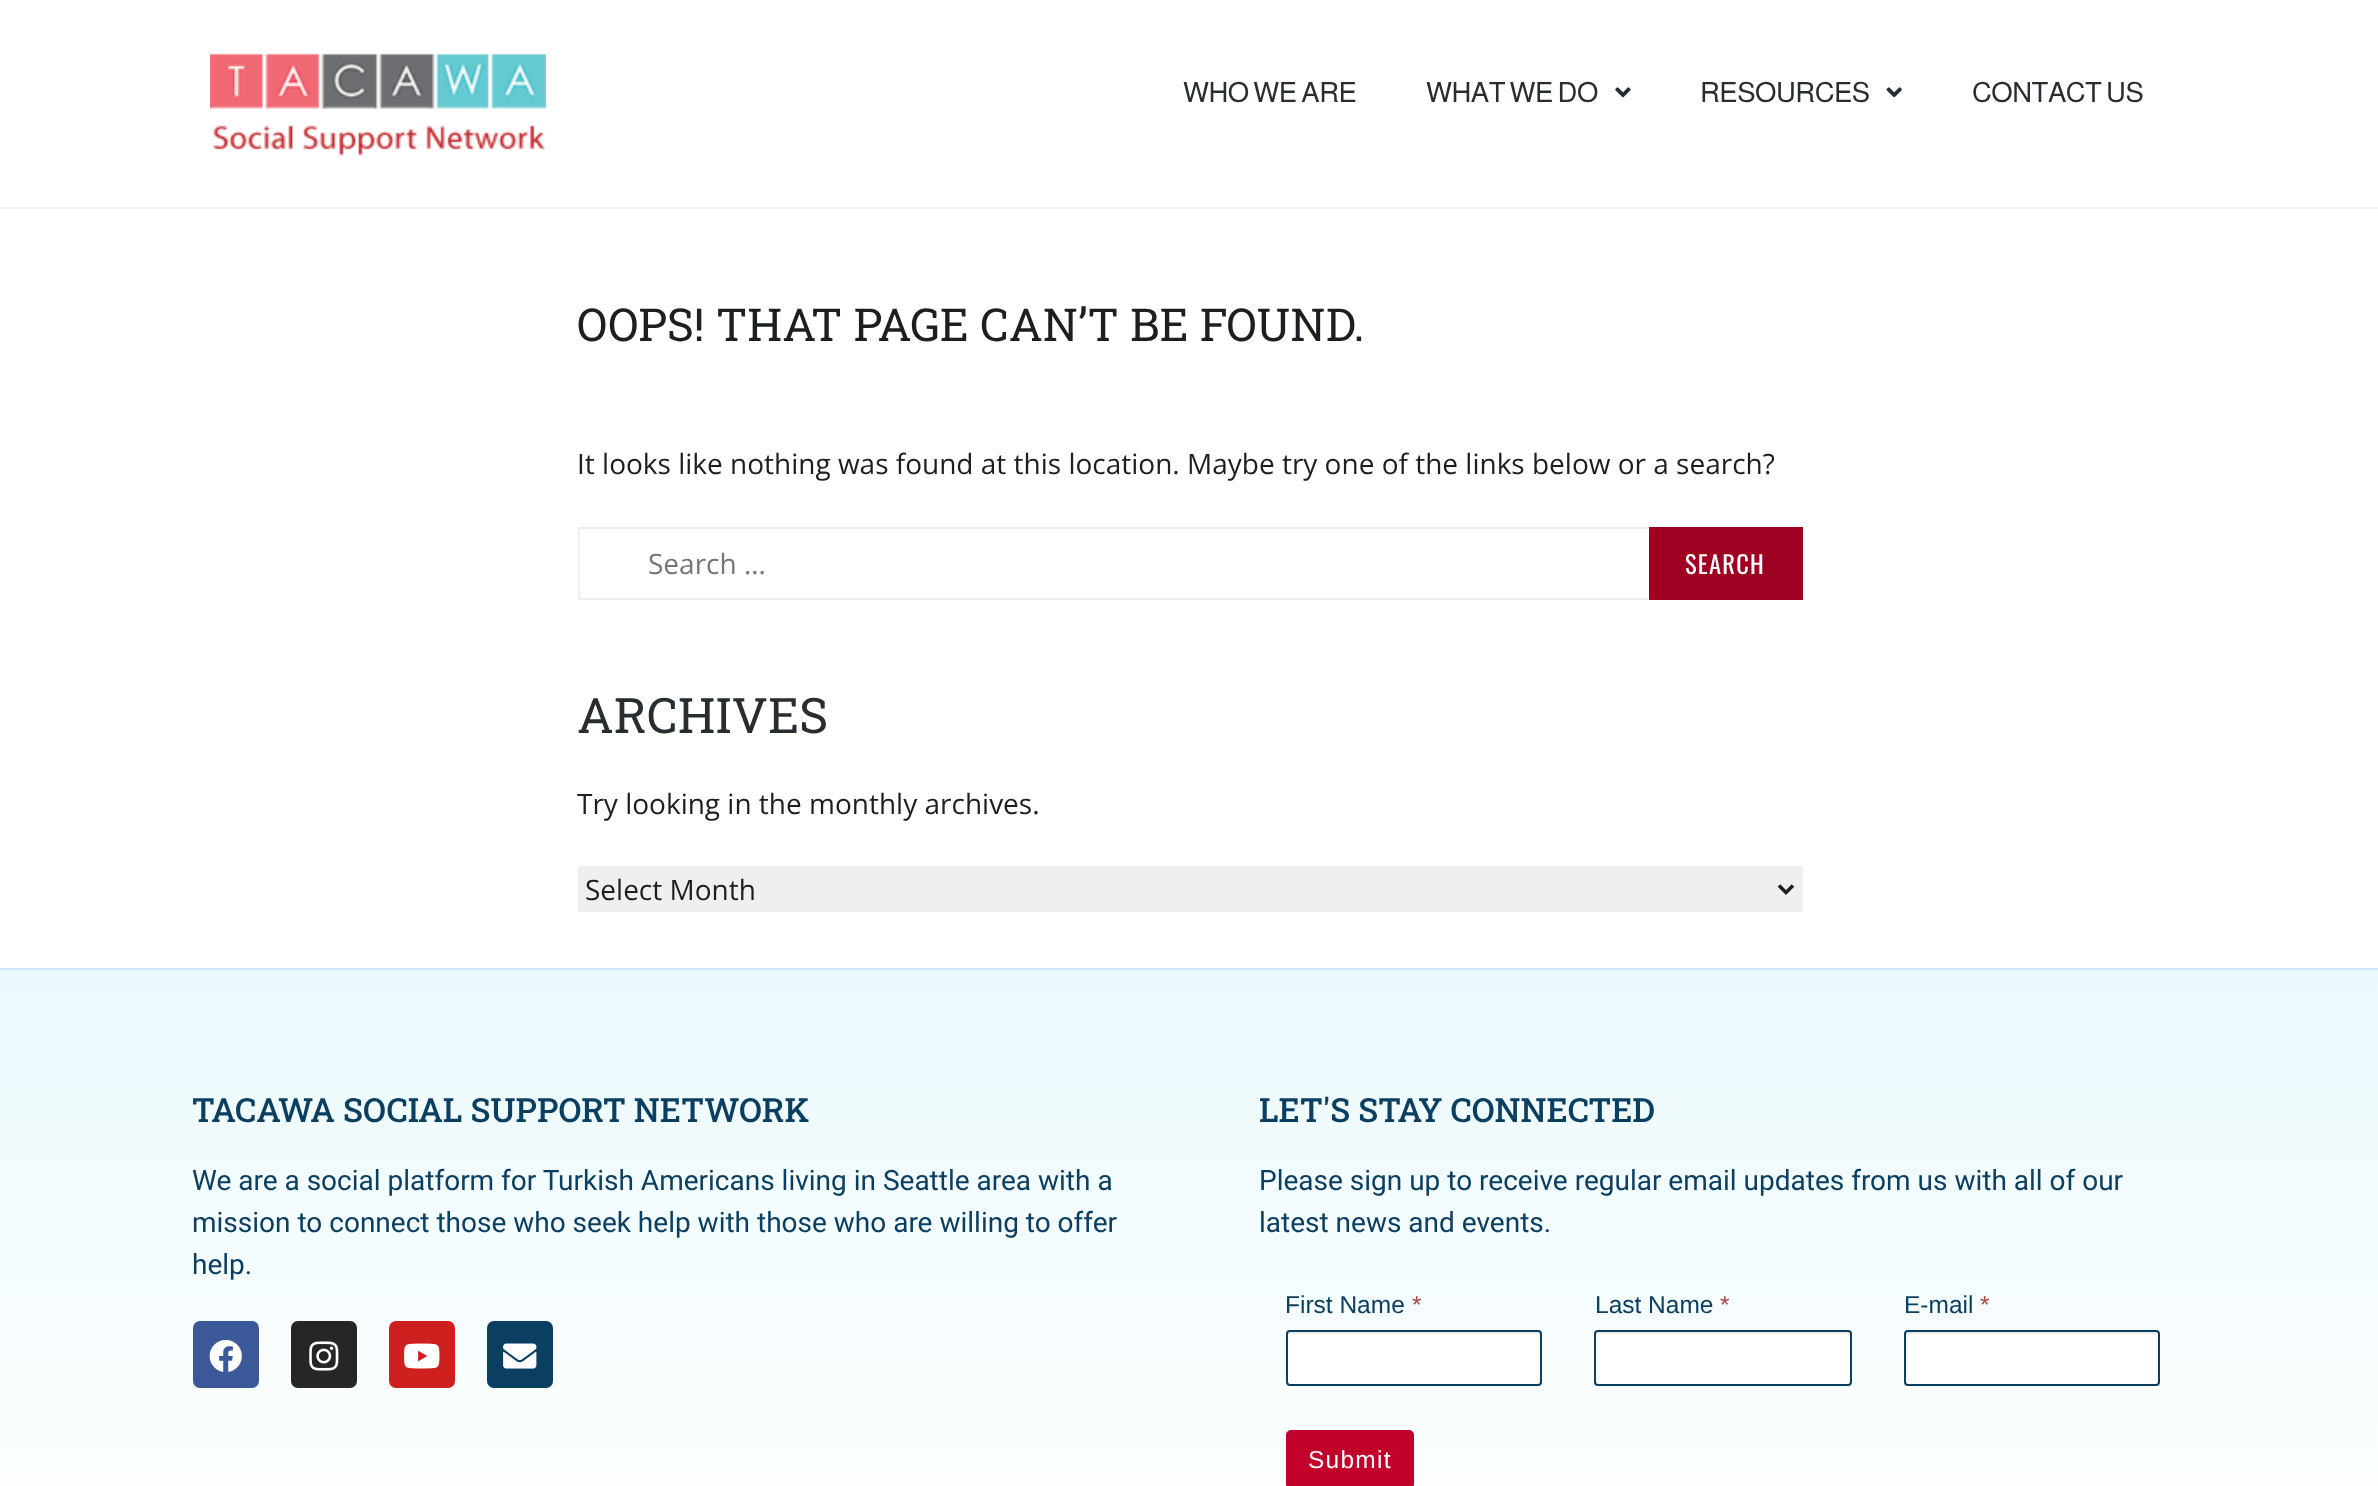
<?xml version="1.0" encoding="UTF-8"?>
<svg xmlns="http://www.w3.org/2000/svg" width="2378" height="1486">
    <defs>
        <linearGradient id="g1" gradientUnits="userSpaceOnUse" x1="1189" y1="969" x2="1189" y2="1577"><stop offset="0" stop-color="#EBF9FD"/><stop offset="1" stop-color="#FFFFFF"/></linearGradient>
    </defs>
    <rect width="100%" height="100%" fill="#FFFFFF"/>
    <rect x="0" y="207" width="2378" height="2" fill="#F0F0F0"/>
    <image x="210" y="53" width="336" height="104" href="img_01.png"/>
    <text x="1183" y="102" font-family="Almarai" font-size="28" letter-spacing="-0.5" fill="#272D30">WHO WE ARE</text>
    <text x="1426" y="102" font-family="Almarai" font-size="28" letter-spacing="-0.5" fill="#272D30">WHAT WE DO</text>
    <image x="1615" y="87" width="16" height="11" href="img_02.png"/>
    <text x="1700" y="102" font-family="Almarai" font-size="28" letter-spacing="-0.5" fill="#272D30">RESOURCES</text>
    <image x="1886" y="87" width="16" height="11" href="img_03.png"/>
    <text x="1972" y="102" font-family="Almarai" font-size="28" letter-spacing="-0.5" fill="#272D30">CONTACT US</text>
    <text x="577" y="341" font-family="Roboto Slab" font-size="45.5" fill="#1B1F22">OOPS! THAT PAGE CAN’T BE FOUND.</text>
    <text x="577" y="474" font-family="Open Sans" font-size="28" fill="#1B1F22">It looks like nothing was found at this location. Maybe try one of the links below or a search?</text>
    <rect x="579" y="528" width="1223" height="71" fill="none" stroke="#EFEFEF" stroke-width="2"/>
    <text x="648" y="574" font-family="Open Sans" font-size="28" fill="#757575">Search …</text>
    <rect x="1649" y="527" width="154" height="73" fill="#9E0022"/>
    <text x="1685" y="574" font-family="Oswald" font-size="24.5" letter-spacing="1.25" fill="#FFFFFF">SEARCH</text>
    <text x="577" y="733" font-family="Roboto Slab" font-size="49" fill="#272D30">ARCHIVES</text>
    <text x="577" y="814" font-family="Open Sans" font-size="28" fill="#1B1F22">Try looking in the monthly archives.</text>
    <rect x="578" y="866" width="1225" height="46" fill="#EFEFEF"/>
    <path d="M 1779 885.5 L 1786 892.5 L 1793 885.5" fill="none" stroke="#1B1F22" stroke-width="3.5"/>
    <text x="585" y="900" font-family="Open Sans" font-size="28" fill="#1B1F22">Select Month</text>
    <rect x="0" y="970" width="2378" height="516" fill="url(#g1)"/>
    <rect x="0" y="968" width="2378" height="2" fill="#CCE7F9"/>
    <text x="192" y="1122" font-family="Roboto Slab" font-size="33.25" font-weight="500" fill="#0B3F61">TACAWA SOCIAL SUPPORT NETWORK</text>
    <text font-family="Roboto" font-size="28" fill="#0B3F61">
        <tspan x="192" y="1190">We are a social platform for Turkish Americans living in Seattle area with a</tspan>
        <tspan x="192" y="1232">mission to connect those who seek help with those who are willing to offer</tspan>
        <tspan x="192" y="1274">help.</tspan>
    </text>
    <rect x="193" y="1321" width="66" height="67" rx="7" fill="#3B5998"/>
    <image x="209" y="1339" width="33" height="33" href="img_04.png"/>
    <rect x="291" y="1321" width="66" height="67" rx="7" fill="#262626"/>
    <image x="309" y="1341" width="30" height="30" href="img_05.png"/>
    <rect x="389" y="1321" width="66" height="67" rx="7" fill="#CD201F"/>
    <image x="404" y="1343" width="36" height="26" href="img_06.png"/>
    <rect x="487" y="1321" width="66" height="67" rx="7" fill="#0B3F61"/>
    <image x="503" y="1343" width="34" height="26" href="img_07.png"/>
    <text x="1259" y="1122" font-family="Roboto Slab" font-size="33.25" font-weight="500" fill="#0B3F61">LET'S STAY CONNECTED</text>
    <text font-family="Roboto" font-size="28" fill="#0B3F61">
        <tspan x="1259" y="1190">Please sign up to receive regular email updates from us with all of our</tspan>
        <tspan x="1259" y="1232">latest news and events.</tspan>
    </text>
    <text x="1285" y="1313" font-family="Liberation Sans" font-size="24.5" fill="#0B3F61">First Name</text>
    <text x="1412" y="1313" font-family="Liberation Sans" font-size="24.5" fill="#A94442">*</text>
    <rect x="1286" y="1330" width="256" height="56" rx="4" fill="#FFFFFF"/>
    <path d="M 1290 1334 H 1538 C 1539 1334 1540 1334 1540 1335 C 1540 1334 1540 1332 1538 1332 H 1290 C 1288 1332 1288 1334 1288 1335 C 1288 1334 1289 1334 1290 1334 Z" fill="#ECECEC"/>
    <rect x="1287" y="1331" width="254" height="54" rx="3" fill="none" stroke="#0B3F61" stroke-width="2"/>
    <text x="1595" y="1313" font-family="Liberation Sans" font-size="24.5" fill="#0B3F61">Last Name</text>
    <text x="1720" y="1313" font-family="Liberation Sans" font-size="24.5" fill="#A94442">*</text>
    <rect x="1594" y="1330" width="258" height="56" rx="4" fill="#FFFFFF"/>
    <path d="M 1598 1334 H 1848 C 1849 1334 1850 1334 1850 1335 C 1850 1334 1850 1332 1848 1332 H 1598 C 1596 1332 1596 1334 1596 1335 C 1596 1334 1597 1334 1598 1334 Z" fill="#ECECEC"/>
    <rect x="1595" y="1331" width="256" height="54" rx="3" fill="none" stroke="#0B3F61" stroke-width="2"/>
    <text x="1904" y="1313" font-family="Liberation Sans" font-size="24.5" fill="#0B3F61">E-mail</text>
    <text x="1980" y="1313" font-family="Liberation Sans" font-size="24.5" fill="#A94442">*</text>
    <rect x="1904" y="1330" width="256" height="56" rx="4" fill="#FFFFFF"/>
    <path d="M 1908 1334 H 2156 C 2157 1334 2158 1334 2158 1335 C 2158 1334 2158 1332 2156 1332 H 1908 C 1906 1332 1906 1334 1906 1335 C 1906 1334 1907 1334 1908 1334 Z" fill="#ECECEC"/>
    <rect x="1905" y="1331" width="254" height="54" rx="3" fill="none" stroke="#0B3F61" stroke-width="2"/>
    <rect x="1287" y="1431" width="126" height="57" rx="4" fill="#C2022B" stroke="#C2022B" stroke-width="2"/>
    <text x="1308" y="1468" font-family="Liberation Sans" font-size="24.5" letter-spacing="1.25" fill="#FFFFFF">Submit</text>
</svg>
